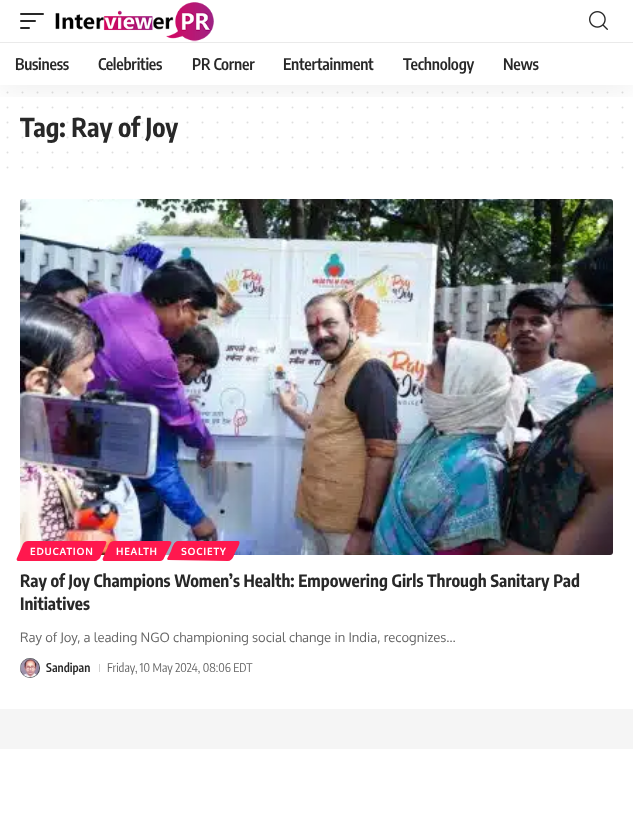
<?xml version="1.0" encoding="UTF-8"?>
<svg xmlns="http://www.w3.org/2000/svg" width="633" height="834">
    <defs>
        <clipPath id="clip1"><rect x="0" y="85" width="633" height="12"/></clipPath>
        <filter id="blur1" x="-50%" y="-200%" width="200%" height="500%"><feGaussianBlur stdDeviation="15"/></filter>
    </defs>
    <rect width="100%" height="100%" fill="#FFFFFF"/>
    <path d="M 7.5 92.5 H 622.7" fill="none" stroke="#DFDFDF" stroke-width="2" stroke-linecap="round" stroke-dasharray="0 15"/>
    <path d="M 7.5 107.5 H 622.7" fill="none" stroke="#DFDFDF" stroke-width="2" stroke-linecap="round" stroke-dasharray="0 15"/>
    <text x="20" y="137" font-family="Encode Sans Condensed" font-size="26" font-weight="700" fill="#282828">Tag: Ray of Joy</text>
    <path d="M 7.5 122.5 H 622.7" fill="none" stroke="#282828" stroke-opacity="0.15" stroke-width="2" stroke-linecap="round" stroke-dasharray="0 15"/>
    <g clip-path="url(#clip1)">
        <rect x="0" y="4" width="633" height="85" fill="#000000" fill-opacity="0.07" filter="url(#blur1)"/>
    </g>
    <rect x="20" y="13" width="24" height="2" rx="1" fill="#282828"/>
    <rect x="20" y="20" width="16" height="2" rx="1" fill="#282828"/>
    <rect x="20" y="27" width="10" height="2" rx="1" fill="#282828"/>
    <image x="55" y="2" width="159" height="40" href="img_01.png"/>
    <image x="589" y="11" width="19" height="19" href="img_02.png"/>
    <rect x="0" y="42" width="633" height="1" fill="#EAEAEA"/>
    <text x="15" y="70" font-family="Encode Sans Condensed" font-size="16" font-weight="600" letter-spacing="-0.25" fill="#282828">Business</text>
    <text x="98" y="70" font-family="Encode Sans Condensed" font-size="16" font-weight="600" letter-spacing="-0.25" fill="#282828">Celebrities</text>
    <text x="192" y="70" font-family="Encode Sans Condensed" font-size="16" font-weight="600" letter-spacing="-0.25" fill="#282828">PR Corner</text>
    <text x="283" y="70" font-family="Encode Sans Condensed" font-size="16" font-weight="600" letter-spacing="-0.25" fill="#282828">Entertainment</text>
    <text x="403" y="70" font-family="Encode Sans Condensed" font-size="16" font-weight="600" letter-spacing="-0.25" fill="#282828">Technology</text>
    <text x="503" y="70" font-family="Encode Sans Condensed" font-size="16" font-weight="600" letter-spacing="-0.25" fill="#282828">News</text>
    <path d="M 7.5 137.5 H 622.7" fill="none" stroke="#282828" stroke-opacity="0.15" stroke-width="2" stroke-linecap="round" stroke-dasharray="0 15"/>
    <path d="M 7.5 152.5 H 622.7" fill="none" stroke="#DFDFDF" stroke-width="2" stroke-linecap="round" stroke-dasharray="0 15"/>
    <path d="M 7.5 167.5 H 622.7" fill="none" stroke="#DFDFDF" stroke-width="2" stroke-linecap="round" stroke-dasharray="0 15"/>
    <image x="20" y="199" width="593" height="356" href="img_03.png"/>
    <path d="M 28 541 H 105 C 106 541 107 542 106 544 L 100 558 C 99 559 97 561 95 561 H 18 C 17 561 16 559 17 558 L 23 544 C 24 542 26 541 28 541 Z" fill="#FF184E"/>
    <text x="30" y="555" font-family="Oxygen" font-size="10" font-weight="700" letter-spacing="0.75" fill="#FFFFFF">EDUCATION</text>
    <path d="M 114 541 H 169 C 171 541 172 542 171 544 L 164 558 C 164 559 162 561 160 561 H 104 C 103 561 102 559 103 558 L 109 544 C 110 542 112 541 114 541 Z" fill="#FF184E"/>
    <text x="116" y="555" font-family="Oxygen" font-size="10" font-weight="700" letter-spacing="0.75" fill="#FFFFFF">HEALTH</text>
    <path d="M 178 541 H 238 C 242 541 237 549 236 551 C 234 554 233 561 228 561 L 168 560 L 167 559 L 171 551 C 172 548 174 541 178 541 Z" fill="#FF184E"/>
    <text x="181" y="555" font-family="Oxygen" font-size="10" font-weight="700" letter-spacing="0.75" fill="#FFFFFF">SOCIETY</text>
    <text font-family="Encode Sans Condensed" font-size="17" font-weight="700" fill="#282828">
        <tspan x="20" y="587">Ray of Joy Champions Women’s Health: Empowering Girls Through Sanitary Pad</tspan>
        <tspan x="20" y="610">Initiatives</tspan>
    </text>
    <text x="20" y="642" font-family="Oxygen" font-size="13" fill="#666666">Ray of Joy, a leading NGO championing social change in India, recognizes…</text>
    <image x="20" y="658" width="20" height="20" href="img_04.png"/>
    <text x="46" y="672" font-family="Encode Sans Condensed" font-size="12" font-weight="600" fill="#282828">Sandipan</text>
    <rect x="99" y="664" width="1" height="8" fill="#D1D1D1"/>
    <text x="107" y="672" font-family="Encode Sans Condensed" font-size="12" fill="#666666">Friday, 10 May 2024, 08:06 EDT</text>
    <rect x="0" y="709" width="633" height="40" fill="#F5F5F5"/>
</svg>
